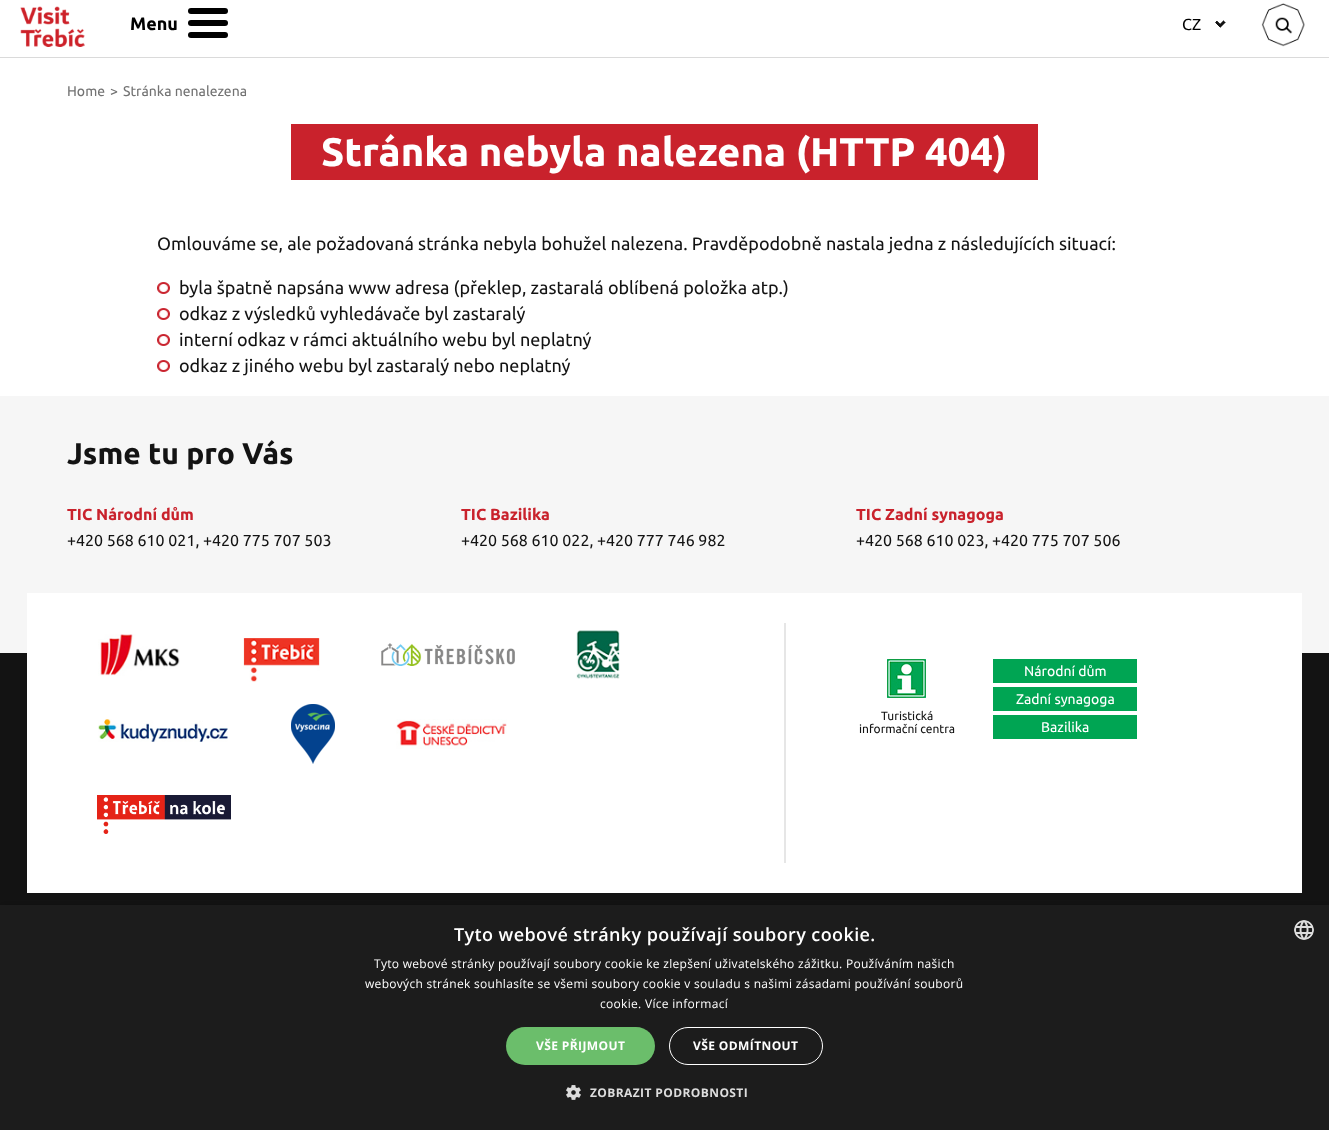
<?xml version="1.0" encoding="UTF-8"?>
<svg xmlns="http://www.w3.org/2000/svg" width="1329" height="1130">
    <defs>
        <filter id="blur1" x="-50%" y="-200%" width="200%" height="500%"><feGaussianBlur stdDeviation="4"/></filter>
    </defs>
    <rect width="100%" height="100%" fill="#FFFFFF"/>
    <rect x="0" y="57" width="1329" height="1" fill="#DADADA"/>
    <image x="20" y="6" width="65" height="41" href="img_01.png"/>
    <text x="130" y="30" font-family="Ubuntu" font-size="18" font-weight="700" fill="#000000">Menu</text>
    <rect x="188" y="8" width="40" height="6" rx="3" fill="#000000"/>
    <rect x="188" y="20" width="40" height="6" rx="3" fill="#000000"/>
    <rect x="188" y="32" width="40" height="6" rx="3" fill="#000000"/>
    <image x="1215" y="20" width="11" height="8" href="img_02.png"/>
    <text x="1182" y="30" font-family="Ubuntu" font-size="16" fill="#000000">CZ</text>
    <image x="1261" y="3" width="44" height="44" href="img_03.png"/>
    <text x="67" y="96" font-family="Ubuntu" font-size="14" fill="#737373">Home</text>
    <text x="110" y="96" font-family="Ubuntu" font-size="14" fill="#737373">&gt;</text>
    <text x="123" y="96" font-family="Ubuntu" font-size="14" fill="#737373">Stránka nenalezena</text>
    <rect x="291" y="124" width="747" height="56" fill="#C9222C"/>
    <text x="321" y="166" font-family="Ubuntu" font-size="40" font-weight="700" fill="#FFFFFF">Stránka nebyla nalezena (HTTP 404)</text>
    <text x="157" y="250" font-family="Ubuntu" font-size="18" fill="#131313">Omlouváme se, ale požadovaná stránka nebyla bohužel nalezena. Pravděpodobně nastala jedna z následujících situací:</text>
    <image x="157" y="282" width="13" height="12" href="img_04.png"/>
    <text x="179" y="294" font-family="Ubuntu" font-size="18" fill="#131313">byla špatně napsána www adresa (překlep, zastaralá oblíbená položka atp.)</text>
    <image x="157" y="308" width="13" height="12" href="img_04.png"/>
    <text x="179" y="320" font-family="Ubuntu" font-size="18" fill="#131313">odkaz z výsledků vyhledávače byl zastaralý</text>
    <image x="157" y="334" width="13" height="12" href="img_04.png"/>
    <text x="179" y="346" font-family="Ubuntu" font-size="18" fill="#131313">interní odkaz v rámci aktuálního webu byl neplatný</text>
    <image x="157" y="360" width="13" height="12" href="img_04.png"/>
    <text x="179" y="372" font-family="Ubuntu" font-size="18" fill="#131313">odkaz z jiného webu byl zastaralý nebo neplatný</text>
    <rect x="0" y="396" width="1329" height="257" fill="#F6F6F6"/>
    <text x="67" y="464" font-family="Ubuntu" font-size="30" font-weight="700" fill="#131313">Jsme tu pro Vás</text>
    <text x="67" y="520" font-family="Ubuntu" font-size="16" font-weight="700" fill="#C9222C">TIC Národní dům</text>
    <text x="67" y="546" font-family="Ubuntu" font-size="16" fill="#131313">+420 568 610 021, +420 775 707 503</text>
    <text x="461" y="520" font-family="Ubuntu" font-size="16" font-weight="700" fill="#C9222C">TIC Bazilika</text>
    <text x="461" y="546" font-family="Ubuntu" font-size="16" fill="#131313">+420 568 610 022, +420 777 746 982</text>
    <text x="856" y="520" font-family="Ubuntu" font-size="16" font-weight="700" fill="#C9222C">TIC Zadní synagoga</text>
    <text x="856" y="546" font-family="Ubuntu" font-size="16" fill="#131313">+420 568 610 023, +420 775 707 506</text>
    <rect x="0" y="653" width="1329" height="252" fill="#131313"/>
    <rect x="27" y="593" width="1275" height="300" fill="#FFFFFF"/>
    <rect x="784" y="623" width="2" height="240" fill="#E6E6E6"/>
    <image x="98" y="634" width="82" height="42" href="img_05.png"/>
    <image x="243" y="638" width="77" height="44" href="img_06.png"/>
    <image x="381" y="643" width="134" height="23" href="img_07.png"/>
    <image x="576" y="630" width="44" height="49" href="img_08.png"/>
    <image x="98" y="719" width="130" height="23" href="img_09.png"/>
    <image x="291" y="704" width="44" height="60" href="img_10.png"/>
    <image x="396" y="719" width="111" height="30" href="img_11.png"/>
    <image x="97" y="795" width="134" height="39" href="img_12.png"/>
    <image x="887" y="659" width="39" height="39" href="img_13.png"/>
    <text x="881" y="720" font-family="Ubuntu" font-size="12" fill="#131313">Turistická</text>
    <text x="859" y="733" font-family="Ubuntu" font-size="12" fill="#131313">informační centra</text>
    <rect x="993" y="659" width="144" height="24" fill="#00A553"/>
    <text x="1024" y="676" font-family="Ubuntu" font-size="14" fill="#FFFFFF">Národní dům</text>
    <rect x="993" y="687" width="144" height="24" fill="#00A553"/>
    <text x="1016" y="704" font-family="Ubuntu" font-size="14" fill="#FFFFFF">Zadní synagoga</text>
    <rect x="993" y="715" width="144" height="24" fill="#00A553"/>
    <text x="1041" y="732" font-family="Ubuntu" font-size="14" fill="#FFFFFF">Bazilika</text>
    <rect x="1" y="907" width="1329" height="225" fill="#000000" fill-opacity="0.35" filter="url(#blur1)"/>
    <rect x="0" y="905" width="1329" height="225" fill="#1C1C1C"/>
    <text x="454" y="941" font-family="Open Sans" font-size="18" font-weight="600" letter-spacing="0.4" fill="#FFFFFF">Tyto webové stránky používají soubory cookie.</text>
    <image x="1294" y="920" width="20" height="20" href="img_14.png"/>
    <text x="374" y="968" font-family="Open Sans" font-size="12" letter-spacing="0.3" fill="#FFFFFF">Tyto webové stránky používají soubory cookie ke zlepšení uživatelského zážitku. Používáním našich</text>
    <text x="365" y="988" font-family="Open Sans" font-size="12" letter-spacing="0.3" fill="#FFFFFF">webových stránek souhlasíte se všemi soubory cookie v souladu s našimi zásadami používání souborů</text>
    <text x="600" y="1008" font-family="Open Sans" font-size="12" letter-spacing="0.3" fill="#FFFFFF">cookie. Více informací</text>
    <rect x="506" y="1027" width="149" height="38" rx="19" fill="#6BBE6B"/>
    <text x="536" y="1050" font-family="Open Sans" font-size="12" font-weight="700" letter-spacing="0.4" fill="#FFFFFF">VŠE PŘIJMOUT</text>
    <rect x="669.5" y="1027.5" width="153" height="37" rx="18.5" fill="none" stroke="#FFFFFF"/>
    <text x="693" y="1050" font-family="Open Sans" font-size="12" font-weight="700" letter-spacing="0.4" fill="#FFFFFF">VŠE ODMÍTNOUT</text>
    <image x="566" y="1085" width="15" height="15" href="img_15.png"/>
    <text x="590" y="1097" font-family="Open Sans" font-size="12" font-weight="700" letter-spacing="0.4" fill="#DDDDDD">ZOBRAZIT PODROBNOSTI</text>
</svg>
